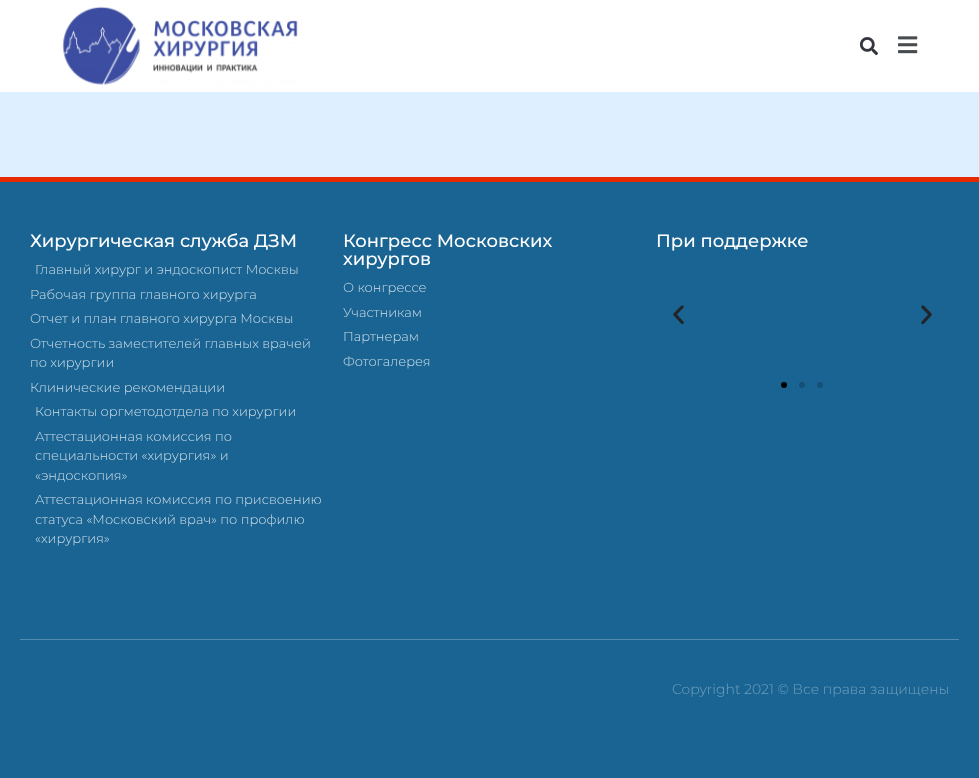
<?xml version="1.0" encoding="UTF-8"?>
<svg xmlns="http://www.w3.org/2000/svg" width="979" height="778">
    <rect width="100%" height="100%" fill="#DEEFFF"/>
    <rect x="0" y="0" width="979" height="92" fill="#FFFFFF"/>
    <image x="62" y="6" width="236" height="79" href="img_01.png"/>
    <image x="859" y="37" width="19" height="19" href="img_02.png"/>
    <image x="898" y="36" width="20" height="18" href="img_03.png"/>
    <rect x="0" y="182" width="979" height="596" fill="#1A6493"/>
    <rect x="0" y="177" width="979" height="5" fill="#E82A00"/>
    <text x="30" y="247" font-family="Montserrat" font-size="18" font-weight="500" fill="#FFFFFF">Хирургическая служба ДЗМ</text>
    <text x="35" y="274" font-family="Montserrat" font-size="13" font-weight="300" fill="#CFDEE8">Главный хирург и эндоскопист Москвы</text>
    <text font-family="Montserrat" font-size="13" font-weight="300" fill="#CFDEE8">
        <tspan x="30" y="299">Рабочая группа главного хирурга</tspan>
        <tspan x="30" y="323">Отчет и план главного хирурга Москвы</tspan>
        <tspan x="30" y="348">Отчетность заместителей главных врачей</tspan>
        <tspan x="30" y="367">по хирургии</tspan>
        <tspan x="30" y="392">Клинические рекомендации</tspan>
    </text>
    <text font-family="Montserrat" font-size="13" font-weight="300" fill="#CFDEE8">
        <tspan x="35" y="416">Контакты оргметодотдела по хирургии</tspan>
        <tspan x="35" y="441">Аттестационная комиссия по</tspan>
        <tspan x="35" y="460">специальности «хирургия» и</tspan>
        <tspan x="35" y="480">«эндоскопия»</tspan>
        <tspan x="35" y="504">Аттестационная комиссия по присвоению</tspan>
        <tspan x="35" y="524">статуса «Московский врач» по профилю</tspan>
        <tspan x="35" y="543">«хирургия»</tspan>
    </text>
    <text font-family="Montserrat" font-size="18" font-weight="500" fill="#FFFFFF">
        <tspan x="343" y="247">Конгресс Московских</tspan>
        <tspan x="343" y="265">хирургов</tspan>
    </text>
    <text font-family="Montserrat" font-size="13" font-weight="300" fill="#CFDEE8">
        <tspan x="343" y="292">О конгрессе</tspan>
        <tspan x="343" y="317">Участникам</tspan>
        <tspan x="343" y="341">Партнерам</tspan>
        <tspan x="343" y="366">Фотогалерея</tspan>
    </text>
    <text x="656" y="247" font-family="Montserrat" font-size="18" font-weight="500" fill="#FFFFFF">При поддержке</text>
    <image x="673" y="305" width="11" height="20" href="img_04.png"/>
    <image x="921" y="305" width="11" height="20" href="img_05.png"/>
    <circle cx="784" cy="385" r="3" fill="#000000"/>
    <circle cx="802" cy="385" r="3" fill="#155076"/>
    <circle cx="820" cy="385" r="3" fill="#155076"/>
    <rect x="20" y="639" width="939" height="1" fill="#538BAE"/>
    <text x="672" y="694" font-family="Montserrat" font-size="14" font-weight="300" fill="#73A0BD">Copyright 2021 © Все права защищены</text>
</svg>
